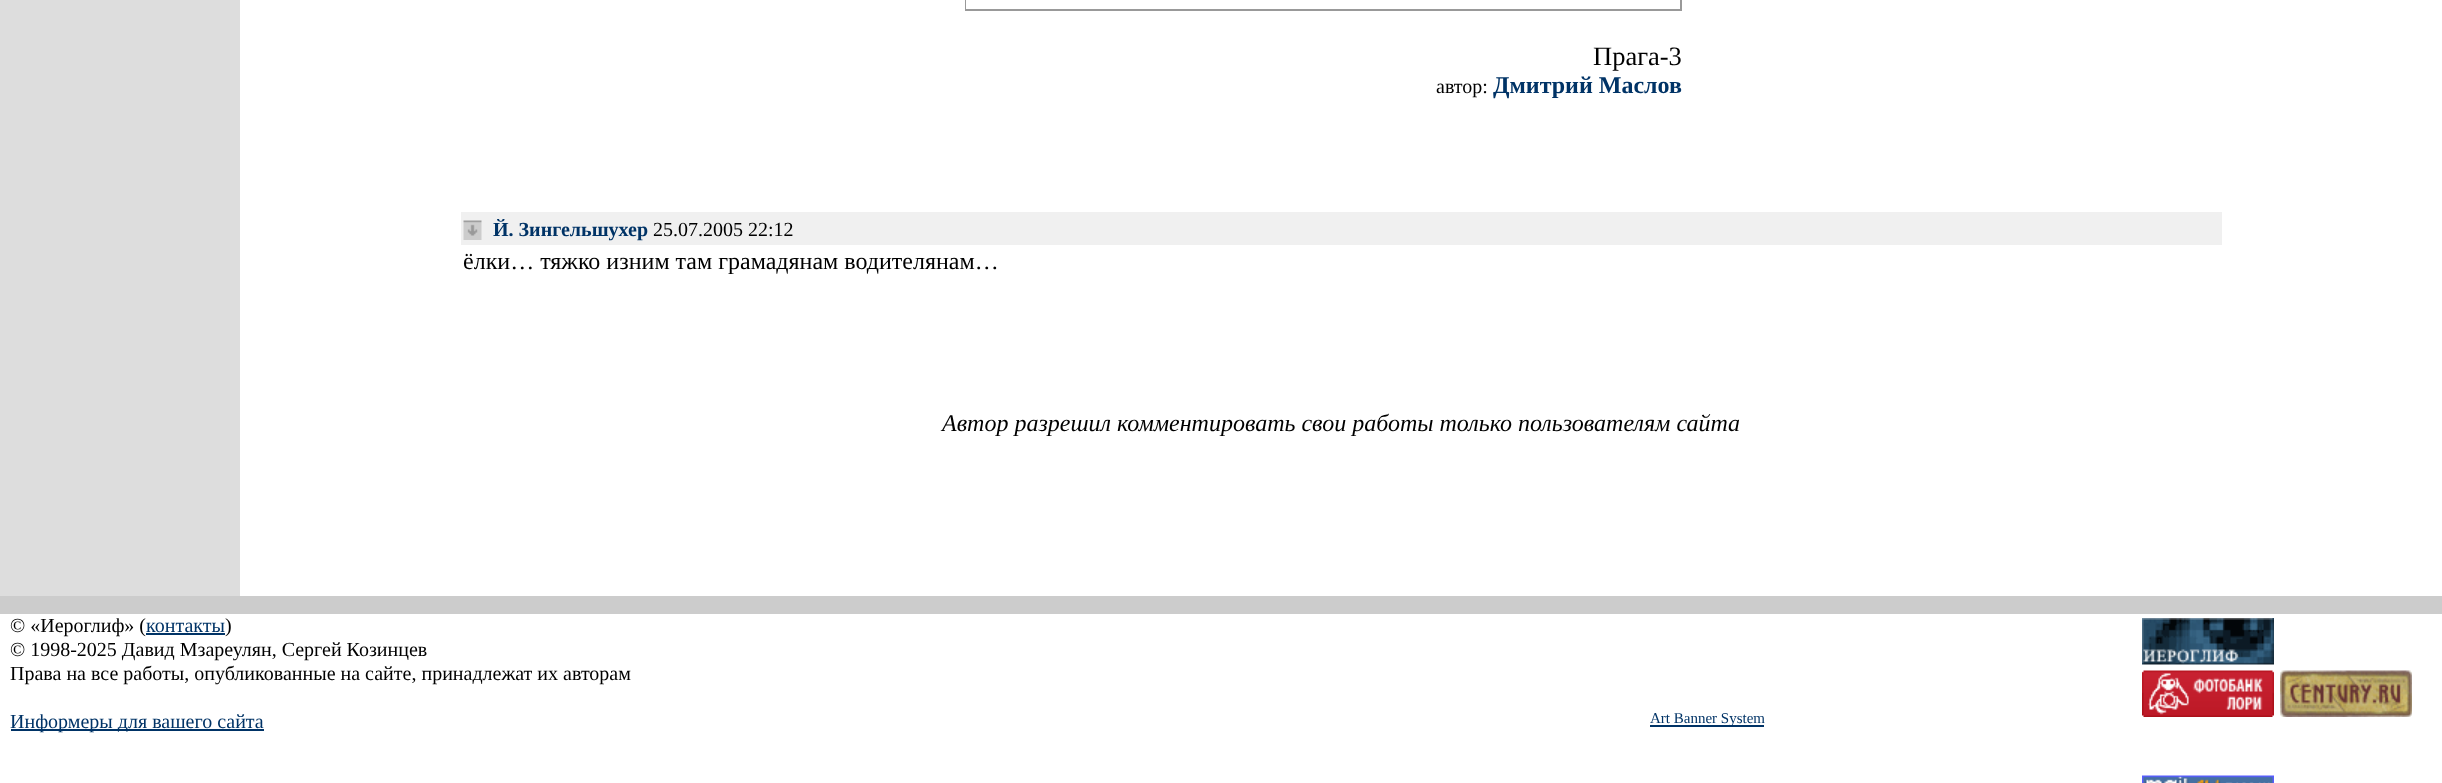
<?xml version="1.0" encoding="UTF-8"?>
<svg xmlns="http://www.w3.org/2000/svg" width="2442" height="783">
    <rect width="100%" height="100%" fill="#FFFFFF"/>
    <rect x="0" y="0" width="240" height="596" fill="#DDDDDD"/>
    <rect x="966" y="-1" width="715" height="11" fill="none" stroke="#999999" stroke-width="2"/>
    <rect x="966" y="0" width="1" height="9" fill="#FFFFFF"/>
    <text x="1593" y="65" font-family="Liberation Serif" font-size="26.5" fill="#000000">Прага-3</text>
    <text x="1436" y="93" font-family="Liberation Serif" font-size="20" fill="#000000">автор:</text>
    <text x="1493" y="93" font-family="Liberation Serif" font-size="24" font-weight="700" fill="#003366">Дмитрий Маслов</text>
    <rect x="461" y="212" width="1761" height="33" fill="#F0F0F0"/>
    <image x="463" y="220" width="19" height="20" href="img_01.png"/>
    <text x="493" y="236" font-family="Liberation Serif" font-size="20" font-weight="700" fill="#003366">Й. Зингельшухер</text>
    <text x="653" y="236" font-family="Liberation Serif" font-size="20" fill="#000000">25.07.2005 22:12</text>
    <text x="463" y="269" font-family="Liberation Serif" font-size="24" fill="#000000">ёлки… тяжко изним там грамадянам водителянам…</text>
    <text x="942" y="431" font-family="Liberation Serif" font-size="24" font-style="italic" fill="#000000">Автор разрешил комментировать свои работы только пользователям сайта</text>
    <rect x="0" y="596" width="2442" height="18" fill="#CCCCCC"/>
    <text x="10" y="632" font-family="Liberation Serif" font-size="20" fill="#000000">© «Иероглиф» (</text>
    <rect x="146" y="633" width="79" height="2" fill="#003366"/>
    <text x="146" y="632" font-family="Liberation Serif" font-size="20" fill="#003366">контакты</text>
    <text x="225" y="632" font-family="Liberation Serif" font-size="20" fill="#000000">)</text>
    <text font-family="Liberation Serif" font-size="20" fill="#000000">
        <tspan x="10" y="656">© 1998-2025 Давид Мзареулян, Сергей Козинцев</tspan>
        <tspan x="10" y="680">Права на все работы, опубликованные на сайте, принадлежат их авторам</tspan>
    </text>
    <rect x="11" y="729" width="253" height="2" fill="#003366"/>
    <text x="10" y="728" font-family="Liberation Serif" font-size="20" fill="#003366">Информеры для вашего сайта</text>
    <rect x="1650" y="725" width="114" height="2" fill="#003366"/>
    <text x="1650" y="723" font-family="Liberation Serif" font-size="15" fill="#003366">Art Banner System</text>
    <image x="2142" y="618" width="132" height="47" href="img_02.png"/>
    <image x="2142" y="670" width="132" height="47" href="img_03.png"/>
    <image x="2280" y="670" width="132" height="47" href="img_04.png"/>
    <image x="2142" y="775" width="132" height="8" href="img_05.png"/>
</svg>
